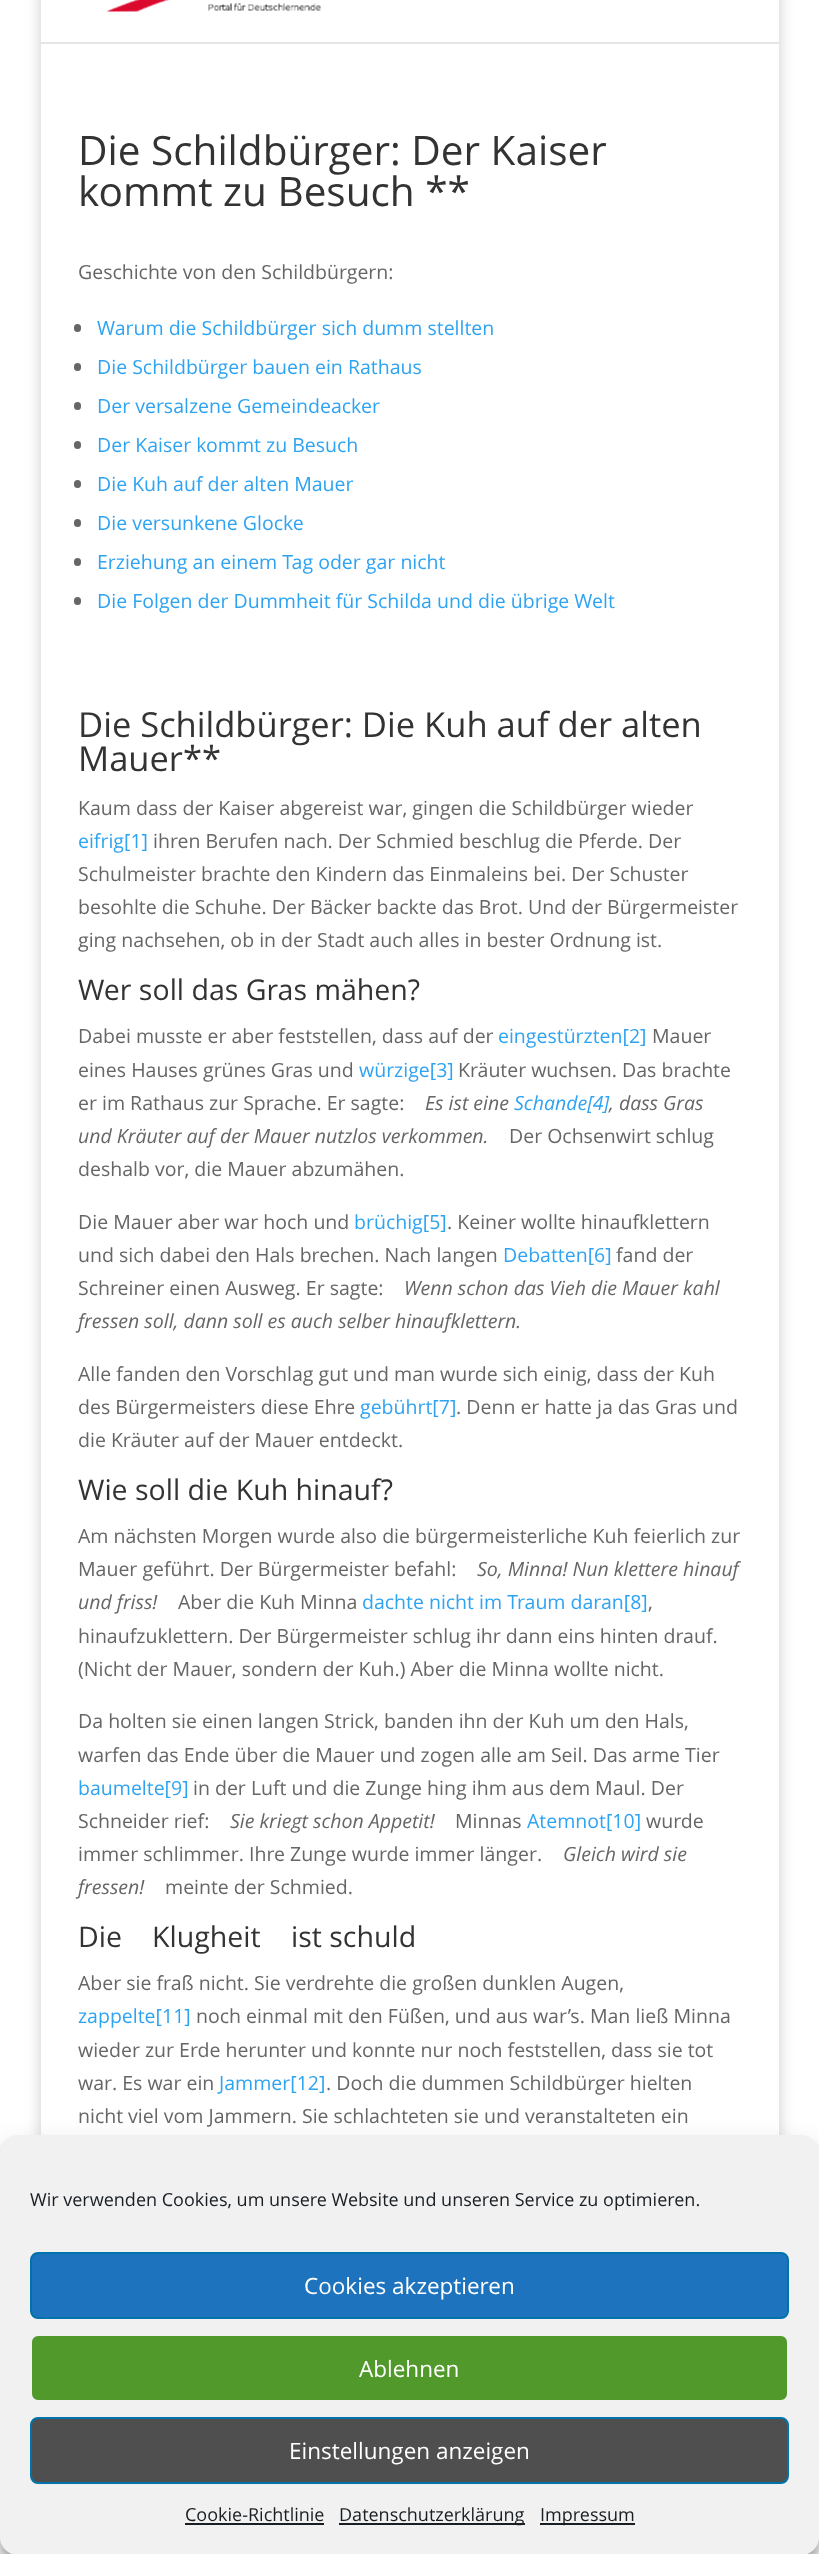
<?xml version="1.0" encoding="UTF-8"?>
<svg xmlns="http://www.w3.org/2000/svg" width="819" height="2554">
    <defs>
        <filter id="blur1" x="-50%" y="-200%" width="200%" height="500%"><feGaussianBlur stdDeviation="7.5"/></filter>
        <filter id="blur2" x="-50%" y="-200%" width="200%" height="500%"><feGaussianBlur stdDeviation="4.5"/></filter>
        <filter id="blur3" x="-50%" y="-200%" width="200%" height="500%"><feGaussianBlur stdDeviation="15"/></filter>
    </defs>
    <rect width="100%" height="100%" fill="#FFFFFF"/>
    <rect x="41" y="-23" width="738" height="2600" fill="#000000" fill-opacity="0.2" filter="url(#blur1)"/>
    <rect x="41" y="42" width="738" height="2093" fill="#FFFFFF"/>
    <path d="M 41 42 V 44 H 779 V -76 H 778 V 42 Z" fill="#000000" fill-opacity="0.1"/>
    <rect x="41" y="0" width="738" height="42" fill="#FFFFFF"/>
    <image x="106" y="0" width="215" height="12" href="img_01.png"/>
    <text font-family="Open Sans" font-size="40.5" fill="#333333">
        <tspan x="78" y="165">Die Schildbürger: Der Kaiser</tspan>
        <tspan x="78" y="206">kommt zu Besuch **</tspan>
    </text>
    <text x="78" y="279" font-family="Open Sans" font-size="19.5" fill="#666666">Geschichte von den Schildbürgern:</text>
    <rect x="74" y="324" width="7" height="8" rx="3.5" fill="#666666"/>
    <text x="97" y="335" font-family="Open Sans" font-size="19.5" fill="#2EA3F2">Warum die Schildbürger sich dumm stellten</text>
    <rect x="74" y="363" width="7" height="8" rx="3.5" fill="#666666"/>
    <text x="97" y="374" font-family="Open Sans" font-size="19.5" fill="#2EA3F2">Die Schildbürger bauen ein Rathaus</text>
    <rect x="74" y="402" width="7" height="8" rx="3.5" fill="#666666"/>
    <text x="97" y="413" font-family="Open Sans" font-size="19.5" fill="#2EA3F2">Der versalzene Gemeindeacker</text>
    <rect x="74" y="441" width="7" height="8" rx="3.5" fill="#666666"/>
    <text x="97" y="452" font-family="Open Sans" font-size="19.5" fill="#2EA3F2">Der Kaiser kommt zu Besuch</text>
    <rect x="74" y="480" width="7" height="8" rx="3.5" fill="#666666"/>
    <text x="97" y="491" font-family="Open Sans" font-size="19.5" fill="#2EA3F2">Die Kuh auf der alten Mauer</text>
    <rect x="74" y="519" width="7" height="8" rx="3.5" fill="#666666"/>
    <text x="97" y="530" font-family="Open Sans" font-size="19.5" fill="#2EA3F2">Die versunkene Glocke</text>
    <rect x="74" y="558" width="7" height="8" rx="3.5" fill="#666666"/>
    <text x="97" y="569" font-family="Open Sans" font-size="19.5" fill="#2EA3F2">Erziehung an einem Tag oder gar nicht</text>
    <rect x="74" y="597" width="7" height="8" rx="3.5" fill="#666666"/>
    <text x="97" y="608" font-family="Open Sans" font-size="19.5" fill="#2EA3F2">Die Folgen der Dummheit für Schilda und die übrige Welt</text>
    <text font-family="Open Sans" font-size="34.5" fill="#333333">
        <tspan x="78" y="737">Die Schildbürger: Die Kuh auf der alten</tspan>
        <tspan x="78" y="771">Mauer**</tspan>
    </text>
    <text x="78" y="815" font-family="Open Sans" font-size="19.5" fill="#666666">Kaum dass der Kaiser abgereist war, gingen die Schildbürger wieder</text>
    <text x="78" y="848" font-family="Open Sans" font-size="19.5" fill="#2EA3F2">eifrig[1]</text>
    <text x="153" y="848" font-family="Open Sans" font-size="19.5" fill="#666666">ihren Berufen nach. Der Schmied beschlug die Pferde. Der</text>
    <text font-family="Open Sans" font-size="19.5" fill="#666666">
        <tspan x="78" y="881">Schulmeister brachte den Kindern das Einmaleins bei. Der Schuster</tspan>
        <tspan x="78" y="914">besohlte die Schuhe. Der Bäcker backte das Brot. Und der Bürgermeister</tspan>
        <tspan x="78" y="947">ging nachsehen, ob in der Stadt auch alles in bester Ordnung ist.</tspan>
    </text>
    <text x="78" y="1000" font-family="Open Sans" font-size="28.5" fill="#333333">Wer soll das Gras mähen?</text>
    <text x="78" y="1043" font-family="Open Sans" font-size="19.5" fill="#666666">Dabei musste er aber feststellen, dass auf der</text>
    <text x="498" y="1043" font-family="Open Sans" font-size="19.5" fill="#2EA3F2">eingestürzten[2]</text>
    <text x="652" y="1043" font-family="Open Sans" font-size="19.5" fill="#666666">Mauer</text>
    <text x="78" y="1077" font-family="Open Sans" font-size="19.5" fill="#666666">eines Hauses grünes Gras und</text>
    <text x="359" y="1077" font-family="Open Sans" font-size="19.5" fill="#2EA3F2">würzige[3]</text>
    <text x="458" y="1077" font-family="Open Sans" font-size="19.5" fill="#666666">Kräuter wuchsen. Das brachte</text>
    <text x="78" y="1110" font-family="Open Sans" font-size="19.5" fill="#666666">er im Rathaus zur Sprache. Er sagte:</text>
    <text x="425" y="1110" font-family="Open Sans" font-size="19.5" font-style="italic" fill="#666666">Es ist eine</text>
    <text x="514" y="1110" font-family="Open Sans" font-size="19.5" font-style="italic" fill="#2EA3F2">Schande[4]</text>
    <text x="609" y="1110" font-family="Open Sans" font-size="19.5" font-style="italic" fill="#666666">, dass Gras</text>
    <text x="78" y="1143" font-family="Open Sans" font-size="19.5" font-style="italic" fill="#666666">und Kräuter auf der Mauer nutzlos verkommen.</text>
    <text x="509" y="1143" font-family="Open Sans" font-size="19.5" fill="#666666">Der Ochsenwirt schlug</text>
    <text x="78" y="1176" font-family="Open Sans" font-size="19.5" fill="#666666">deshalb vor, die Mauer abzumähen.</text>
    <text x="78" y="1229" font-family="Open Sans" font-size="19.5" fill="#666666">Die Mauer aber war hoch und</text>
    <text x="354" y="1229" font-family="Open Sans" font-size="19.5" fill="#2EA3F2">brüchig[5]</text>
    <text x="447" y="1229" font-family="Open Sans" font-size="19.5" fill="#666666">. Keiner wollte hinaufklettern</text>
    <text x="78" y="1262" font-family="Open Sans" font-size="19.5" fill="#666666">und sich dabei den Hals brechen. Nach langen</text>
    <text x="503" y="1262" font-family="Open Sans" font-size="19.5" fill="#2EA3F2">Debatten[6]</text>
    <text x="616" y="1262" font-family="Open Sans" font-size="19.5" fill="#666666">fand der</text>
    <text x="78" y="1295" font-family="Open Sans" font-size="19.5" fill="#666666">Schreiner einen Ausweg. Er sagte:</text>
    <text x="404" y="1295" font-family="Open Sans" font-size="19.5" font-style="italic" fill="#666666">Wenn schon das Vieh die Mauer kahl</text>
    <text x="78" y="1328" font-family="Open Sans" font-size="19.5" font-style="italic" fill="#666666">fressen soll, dann soll es auch selber hinaufklettern.</text>
    <text font-family="Open Sans" font-size="19.5" fill="#666666">
        <tspan x="78" y="1381">Alle fanden den Vorschlag gut und man wurde sich einig, dass der Kuh</tspan>
        <tspan x="78" y="1414">des Bürgermeisters diese Ehre</tspan>
    </text>
    <text x="360" y="1414" font-family="Open Sans" font-size="19.5" fill="#2EA3F2">gebührt[7]</text>
    <text x="456" y="1414" font-family="Open Sans" font-size="19.5" fill="#666666">. Denn er hatte ja das Gras und</text>
    <text x="78" y="1447" font-family="Open Sans" font-size="19.5" fill="#666666">die Kräuter auf der Mauer entdeckt.</text>
    <text x="78" y="1500" font-family="Open Sans" font-size="28.5" fill="#333333">Wie soll die Kuh hinauf?</text>
    <text font-family="Open Sans" font-size="19.5" fill="#666666">
        <tspan x="78" y="1543">Am nächsten Morgen wurde also die bürgermeisterliche Kuh feierlich zur</tspan>
        <tspan x="78" y="1576">Mauer geführt. Der Bürgermeister befahl:</tspan>
    </text>
    <text x="477" y="1576" font-family="Open Sans" font-size="19.5" font-style="italic" fill="#666666">So, Minna! Nun klettere hinauf</text>
    <text x="78" y="1609" font-family="Open Sans" font-size="19.5" font-style="italic" fill="#666666">und friss!</text>
    <text x="178" y="1609" font-family="Open Sans" font-size="19.5" fill="#666666">Aber die Kuh Minna</text>
    <text x="362" y="1609" font-family="Open Sans" font-size="19.5" fill="#2EA3F2">dachte nicht im Traum daran[8]</text>
    <text x="648" y="1609" font-family="Open Sans" font-size="19.5" fill="#666666">,</text>
    <text font-family="Open Sans" font-size="19.5" fill="#666666">
        <tspan x="78" y="1643">hinaufzuklettern. Der Bürgermeister schlug ihr dann eins hinten drauf.</tspan>
        <tspan x="78" y="1676">(Nicht der Mauer, sondern der Kuh.) Aber die Minna wollte nicht.</tspan>
    </text>
    <text font-family="Open Sans" font-size="19.5" fill="#666666">
        <tspan x="78" y="1728">Da holten sie einen langen Strick, banden ihn der Kuh um den Hals,</tspan>
        <tspan x="78" y="1762">warfen das Ende über die Mauer und zogen alle am Seil. Das arme Tier</tspan>
    </text>
    <text x="78" y="1795" font-family="Open Sans" font-size="19.5" fill="#2EA3F2">baumelte[9]</text>
    <text x="193" y="1795" font-family="Open Sans" font-size="19.5" fill="#666666">in der Luft und die Zunge hing ihm aus dem Maul. Der</text>
    <text x="78" y="1828" font-family="Open Sans" font-size="19.5" fill="#666666">Schneider rief:</text>
    <text x="230" y="1828" font-family="Open Sans" font-size="19.5" font-style="italic" fill="#666666">Sie kriegt schon Appetit!</text>
    <text x="455" y="1828" font-family="Open Sans" font-size="19.5" fill="#666666">Minnas</text>
    <text x="527" y="1828" font-family="Open Sans" font-size="19.5" fill="#2EA3F2">Atemnot[10]</text>
    <text x="646" y="1828" font-family="Open Sans" font-size="19.5" fill="#666666">wurde</text>
    <text x="78" y="1861" font-family="Open Sans" font-size="19.5" fill="#666666">immer schlimmer. Ihre Zunge wurde immer länger.</text>
    <text x="563" y="1861" font-family="Open Sans" font-size="19.5" font-style="italic" fill="#666666">Gleich wird sie</text>
    <text x="78" y="1894" font-family="Open Sans" font-size="19.5" font-style="italic" fill="#666666">fressen!</text>
    <text x="165" y="1894" font-family="Open Sans" font-size="19.5" fill="#666666">meinte der Schmied.</text>
    <text x="78" y="1947" font-family="Open Sans" font-size="28.5" fill="#333333">Die</text>
    <text x="152" y="1947" font-family="Open Sans" font-size="28.5" fill="#333333">Klugheit</text>
    <text x="291" y="1947" font-family="Open Sans" font-size="28.5" fill="#333333">ist schuld</text>
    <text x="78" y="1990" font-family="Open Sans" font-size="19.5" fill="#666666">Aber sie fraß nicht. Sie verdrehte die großen dunklen Augen,</text>
    <text x="78" y="2023" font-family="Open Sans" font-size="19.5" fill="#2EA3F2">zappelte[11]</text>
    <text x="196" y="2023" font-family="Open Sans" font-size="19.5" fill="#666666">noch einmal mit den Füßen, und aus war’s. Man ließ Minna</text>
    <text font-family="Open Sans" font-size="19.5" fill="#666666">
        <tspan x="78" y="2057">wieder zur Erde herunter und konnte nur noch feststellen, dass sie tot</tspan>
        <tspan x="78" y="2090">war. Es war ein</tspan>
    </text>
    <text x="219" y="2090" font-family="Open Sans" font-size="19.5" fill="#2EA3F2">Jammer[12]</text>
    <text x="326" y="2090" font-family="Open Sans" font-size="19.5" fill="#666666">. Doch die dummen Schildbürger hielten</text>
    <text x="78" y="2123" font-family="Open Sans" font-size="19.5" fill="#666666">nicht viel vom Jammern. Sie schlachteten sie und veranstalteten ein</text>
    <rect x="0" y="2144" width="819" height="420" rx="18" fill="#000000" fill-opacity="0.23" filter="url(#blur2)"/>
    <rect x="0" y="2150" width="819" height="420" rx="18" fill="#000000" fill-opacity="0.19" filter="url(#blur3)"/>
    <rect x="0" y="2135" width="819" height="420" rx="18" fill="#F1F1F1"/>
    <text x="30" y="2206" font-family="Open Sans" font-size="18" fill="#191E23">Wir verwenden Cookies, um unsere Website und unseren Service zu optimieren.</text>
    <rect x="31" y="2253" width="757" height="65" rx="7" fill="#1E73BE" stroke="#0073AA" stroke-width="2"/>
    <text x="304" y="2294" font-family="Open Sans" font-size="22.5" fill="#FFFFFF">Cookies akzeptieren</text>
    <rect x="31" y="2335" width="757" height="66" rx="7" fill="#52992C" stroke="#F1F1F1" stroke-width="2"/>
    <text x="359" y="2377" font-family="Open Sans" font-size="22.5" fill="#FFFFFF">Ablehnen</text>
    <rect x="31" y="2418" width="757" height="65" rx="7" fill="#4F4F4F" stroke="#0073AA" stroke-width="2"/>
    <text x="289" y="2459" font-family="Open Sans" font-size="22.5" fill="#FFFFFF">Einstellungen anzeigen</text>
    <text x="185" y="2521" font-family="Open Sans" font-size="18" fill="#191E23">Cookie-Richtlinie</text>
    <rect x="185" y="2523" width="139" height="2" fill="#191E23"/>
    <rect x="339" y="2523" width="186" height="2" fill="#191E23"/>
    <text x="339" y="2521" font-family="Open Sans" font-size="18" fill="#191E23">Datenschutzerklärung</text>
    <rect x="540" y="2523" width="95" height="2" fill="#191E23"/>
    <text x="540" y="2521" font-family="Open Sans" font-size="18" fill="#191E23">Impressum</text>
</svg>
